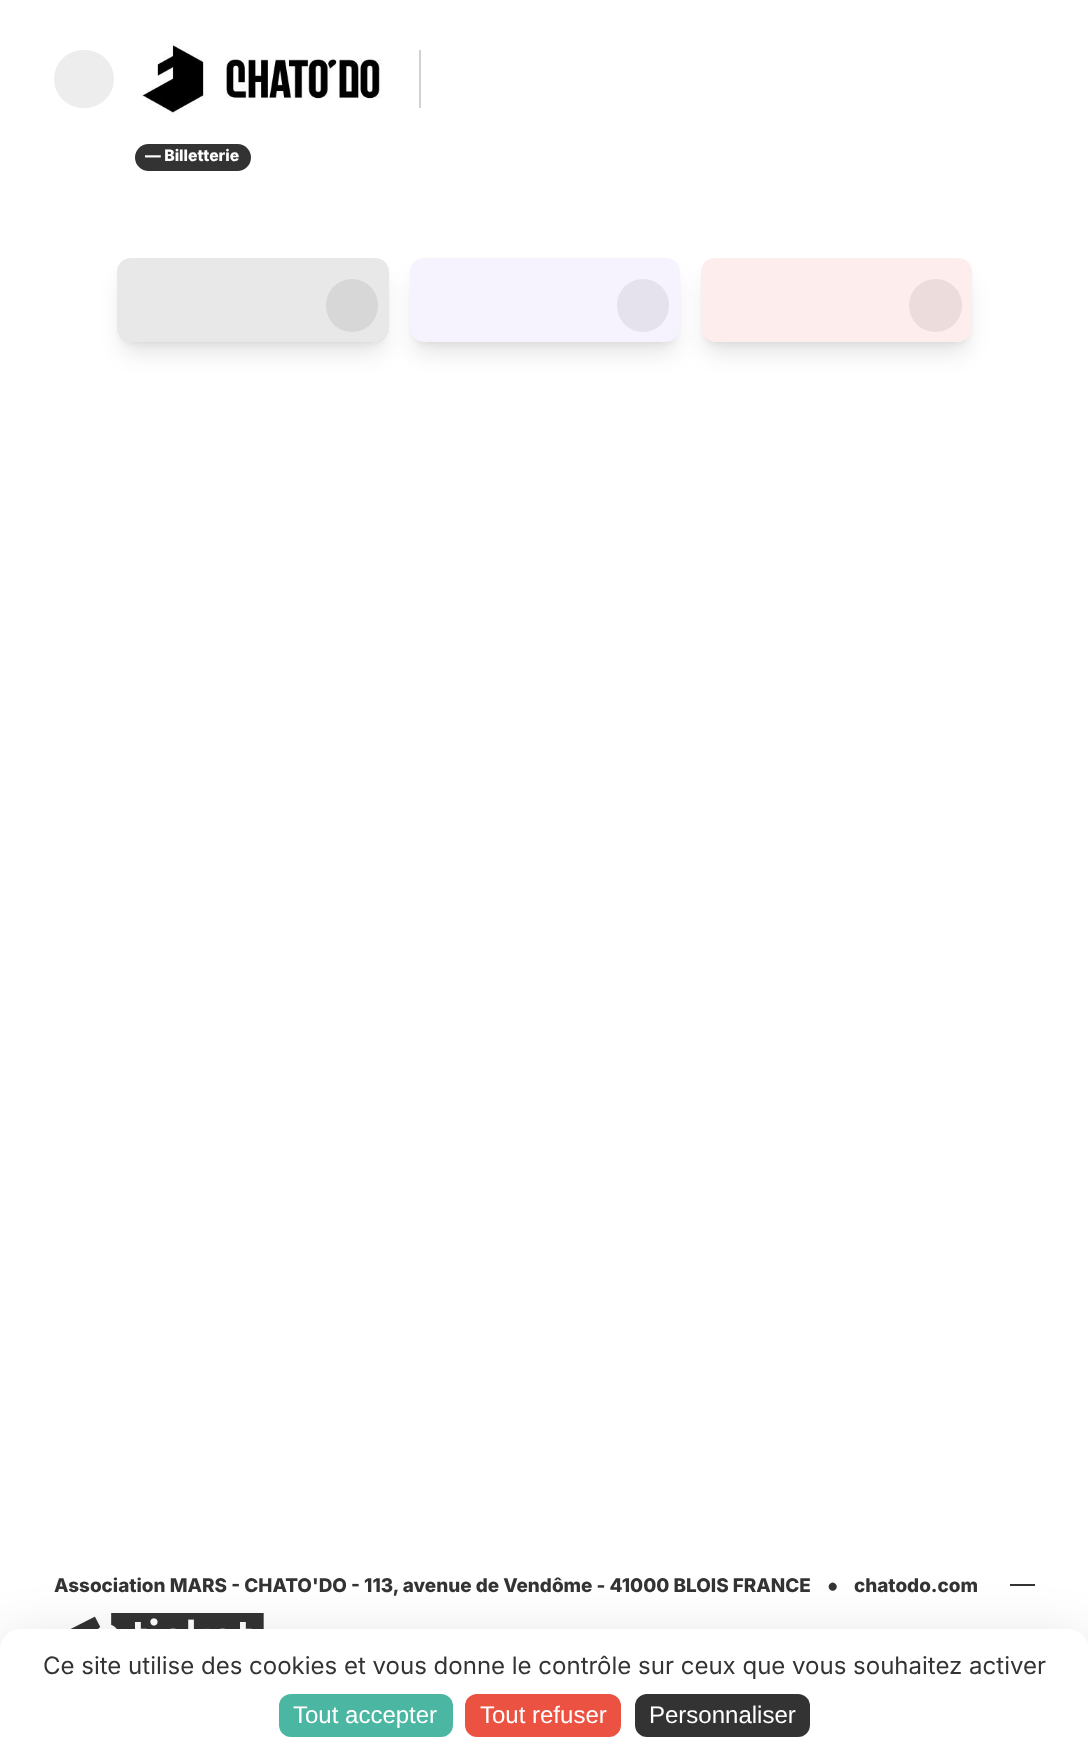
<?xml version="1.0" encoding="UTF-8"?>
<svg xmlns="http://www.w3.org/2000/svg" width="1088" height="1762">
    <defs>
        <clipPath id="clip1"><path d="M 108 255 H 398 V 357 H 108 Z M 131 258 H 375 C 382.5 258 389 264.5 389 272 V 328 C 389 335.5 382.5 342 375 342 H 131 C 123.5 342 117 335.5 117 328 V 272 C 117 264.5 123.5 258 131 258 Z" clip-rule="evenodd"/></clipPath>
        <filter id="blur1" x="-50%" y="-200%" width="200%" height="500%"><feGaussianBlur stdDeviation="4.5"/></filter>
        <clipPath id="clip2"><path d="M 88 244 H 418 V 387 H 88 Z M 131 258 H 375 C 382.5 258 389 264.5 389 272 V 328 C 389 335.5 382.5 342 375 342 H 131 C 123.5 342 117 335.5 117 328 V 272 C 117 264.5 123.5 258 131 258 Z" clip-rule="evenodd"/></clipPath>
        <filter id="blur2" x="-50%" y="-200%" width="200%" height="500%"><feGaussianBlur stdDeviation="11"/></filter>
        <clipPath id="clip3"><path d="M 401 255 H 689 V 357 H 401 Z M 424 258 H 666 C 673.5 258 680 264.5 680 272 V 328 C 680 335.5 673.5 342 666 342 H 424 C 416.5 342 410 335.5 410 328 V 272 C 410 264.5 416.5 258 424 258 Z" clip-rule="evenodd"/></clipPath>
        <clipPath id="clip4"><path d="M 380 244 H 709 V 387 H 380 Z M 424 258 H 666 C 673.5 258 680 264.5 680 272 V 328 C 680 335.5 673.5 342 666 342 H 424 C 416.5 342 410 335.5 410 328 V 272 C 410 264.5 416.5 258 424 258 Z" clip-rule="evenodd"/></clipPath>
        <clipPath id="clip5"><path d="M 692 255 H 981 V 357 H 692 Z M 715 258 H 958 C 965.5 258 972 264.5 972 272 V 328 C 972 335.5 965.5 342 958 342 H 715 C 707.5 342 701 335.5 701 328 V 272 C 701 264.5 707.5 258 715 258 Z" clip-rule="evenodd"/></clipPath>
        <clipPath id="clip6"><path d="M 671 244 H 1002 V 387 H 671 Z M 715 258 H 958 C 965.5 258 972 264.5 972 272 V 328 C 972 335.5 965.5 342 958 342 H 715 C 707.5 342 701 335.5 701 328 V 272 C 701 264.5 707.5 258 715 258 Z" clip-rule="evenodd"/></clipPath>
        <filter id="blur3" x="-50%" y="-200%" width="200%" height="500%"><feGaussianBlur stdDeviation="31.5"/></filter>
    </defs>
    <rect width="100%" height="100%" fill="#FFFFFF"/>
    <rect x="54" y="50" width="60" height="58" rx="29" fill="#EDEDED"/>
    <rect x="419" y="50" width="2" height="58" fill="#D2D2D2"/>
    <image x="141" y="43" width="241" height="72" href="img_01.png"/>
    <rect x="135" y="144" width="116" height="27" rx="13.5" fill="#333333"/>
    <text x="145" y="161" font-family="Inter" font-size="15.75" font-weight="800" fill="#FFFFFF">— Billetterie</text>
    <g clip-path="url(#clip1)">
        <rect x="123" y="270" width="260" height="72" rx="8" fill="#000000" fill-opacity="0.1" filter="url(#blur1)"/>
    </g>
    <g clip-path="url(#clip2)">
        <rect x="122" y="278" width="262" height="75" rx="9" fill="#000000" fill-opacity="0.1" filter="url(#blur2)"/>
    </g>
    <rect x="326" y="279" width="52" height="53" rx="26" fill="#EDEDED"/>
    <rect x="117" y="258" width="272" height="84" rx="14" fill="#202020" fill-opacity="0.1"/>
    <g clip-path="url(#clip3)">
        <rect x="416" y="270" width="258" height="72" rx="8" fill="#000000" fill-opacity="0.1" filter="url(#blur1)"/>
    </g>
    <g clip-path="url(#clip4)">
        <rect x="414" y="278" width="261" height="75" rx="9" fill="#000000" fill-opacity="0.1" filter="url(#blur2)"/>
    </g>
    <rect x="617" y="279" width="52" height="53" rx="26" fill="#EDEDED"/>
    <rect x="410" y="258" width="270" height="84" rx="14" fill="#A78BFA" fill-opacity="0.1"/>
    <g clip-path="url(#clip5)">
        <rect x="707" y="270" width="259" height="72" rx="8" fill="#000000" fill-opacity="0.1" filter="url(#blur1)"/>
    </g>
    <g clip-path="url(#clip6)">
        <rect x="705" y="278" width="263" height="75" rx="9" fill="#000000" fill-opacity="0.1" filter="url(#blur2)"/>
    </g>
    <circle cx="935.5" cy="305.5" r="26.5" fill="#EDEDED"/>
    <rect x="701" y="258" width="271" height="84" rx="14" fill="#EB5242" fill-opacity="0.1"/>
    <text x="54" y="1592" font-family="Inter" font-size="18.9" font-weight="800" fill="#333333">Association MARS - CHATO'DO - 113, avenue de Vendôme - 41000 BLOIS FRANCE</text>
    <text x="827" y="1592" font-family="Liberation Sans" font-size="18.9" font-weight="700" fill="#333333">●</text>
    <text x="854" y="1592" font-family="Inter" font-size="18.9" font-weight="800" fill="#333333">chatodo.com</text>
    <rect x="1010" y="1584" width="25" height="2" fill="#333333"/>
    <image x="70" y="1613" width="194" height="16" href="img_02.png"/>
    <rect x="0" y="1650" width="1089" height="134" rx="21" fill="#000000" fill-opacity="0.18" filter="url(#blur3)"/>
    <path d="M 21 1629 H 1068 C 1079.5 1629 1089 1638.5 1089 1650 V 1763 H 0 V 1650 C 0 1638.5 9.5 1629 21 1629 Z" fill="#FFFFFF"/>
    <text x="43" y="1674" font-family="Inter" font-size="24" fill="#333333">Ce site utilise des cookies et vous donne le contrôle sur ceux que vous souhaitez activer</text>
    <rect x="279" y="1694" width="174" height="43" rx="12" fill="#4BB6A2"/>
    <text x="293" y="1723" font-family="Liberation Sans" font-size="24" fill="#FFFFFF">Tout accepter</text>
    <rect x="465" y="1694" width="156" height="43" rx="12" fill="#EB5242"/>
    <text x="480" y="1723" font-family="Liberation Sans" font-size="24" fill="#FFFFFF">Tout refuser</text>
    <rect x="635" y="1694" width="175" height="43" rx="12" fill="#333333"/>
    <text x="649" y="1723" font-family="Liberation Sans" font-size="24" fill="#FFFFFF">Personnaliser</text>
</svg>
